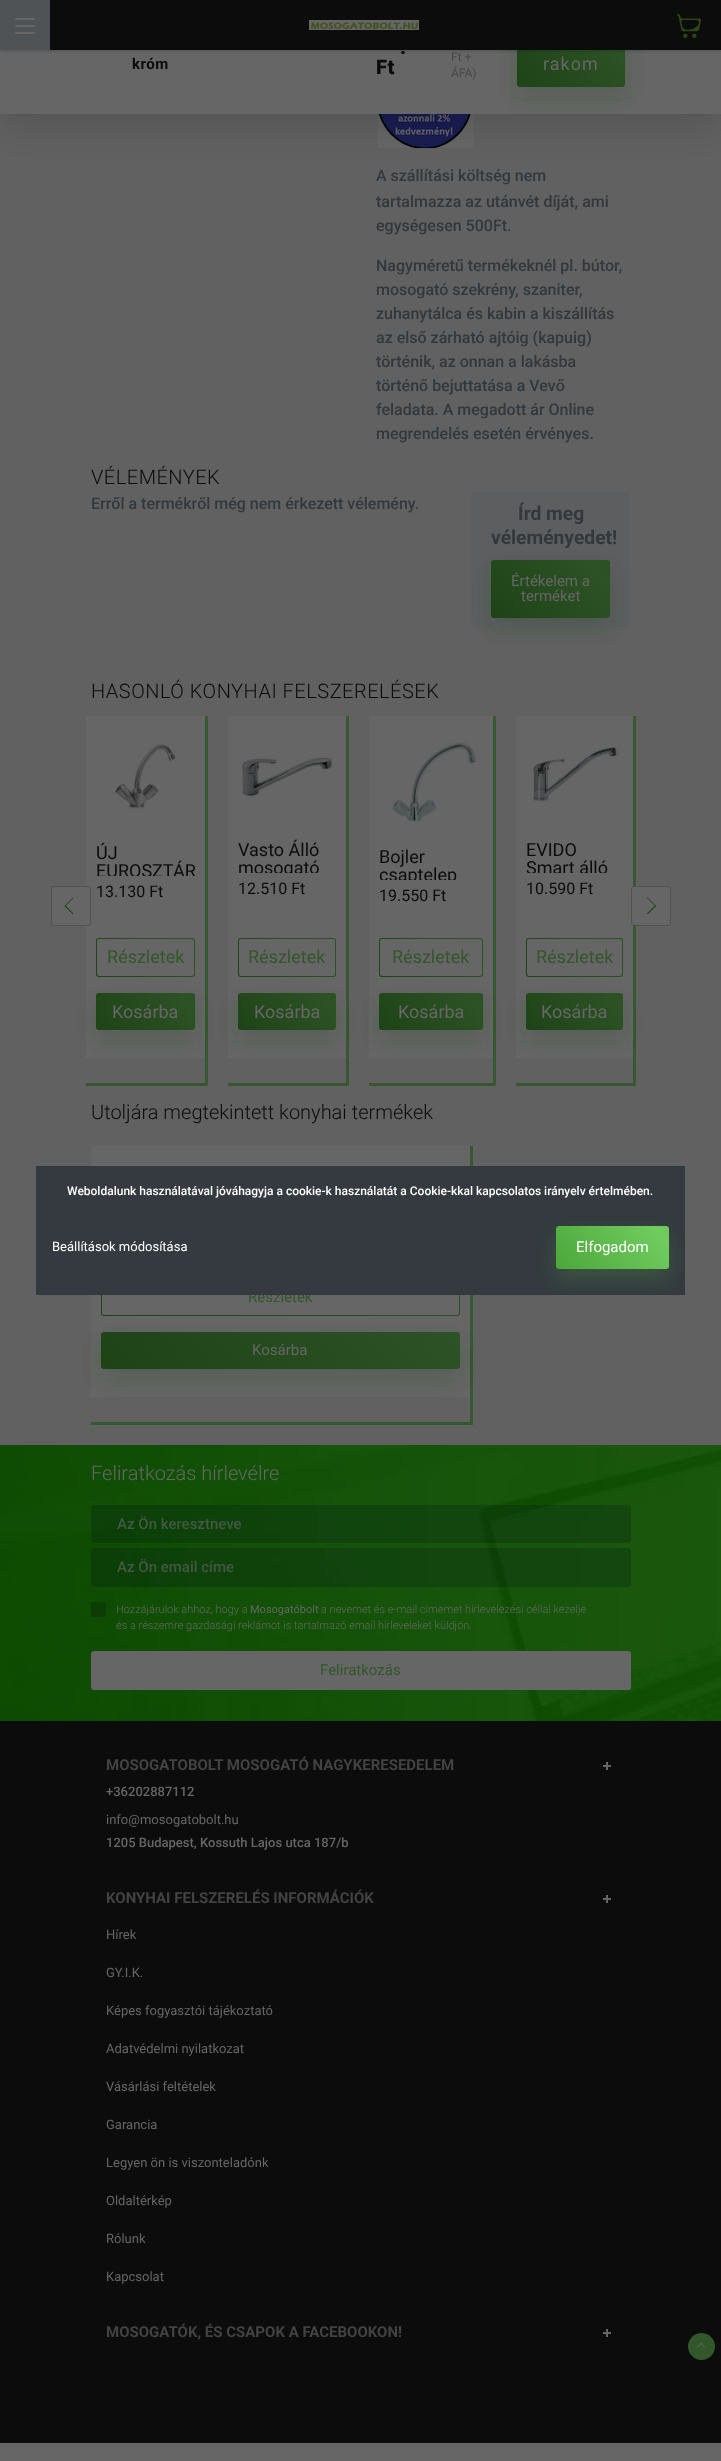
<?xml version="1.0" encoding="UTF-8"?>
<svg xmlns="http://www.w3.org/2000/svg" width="721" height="2461">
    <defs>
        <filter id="blur1" x="-50%" y="-200%" width="200%" height="500%"><feGaussianBlur stdDeviation="20"/></filter>
        <filter id="blur2" x="-50%" y="-200%" width="200%" height="500%"><feGaussianBlur stdDeviation="10"/></filter>
        <linearGradient id="g1" gradientUnits="userSpaceOnUse" x1="547" y1="123" x2="703" y2="-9"><stop offset="0" stop-color="#1E4317"/><stop offset="0.51" stop-color="#2D5226"/><stop offset="1" stop-color="#1E4317"/></linearGradient>
        <filter id="blur3" x="-50%" y="-200%" width="200%" height="500%"><feGaussianBlur stdDeviation="1.5"/></filter>
        <linearGradient id="g2" gradientUnits="userSpaceOnUse" x1="526" y1="660" x2="694" y2="518"><stop offset="0" stop-color="#1E4317"/><stop offset="0.51" stop-color="#2D5226"/><stop offset="1" stop-color="#1E4317"/></linearGradient>
        <clipPath id="clip1"><rect x="96" y="836" width="99" height="40"/></clipPath>
        <linearGradient id="g3" gradientUnits="userSpaceOnUse" x1="127" y1="1014" x2="263" y2="901"><stop offset="0" stop-color="#1E4317"/><stop offset="0.51" stop-color="#2D5226"/><stop offset="1" stop-color="#1E4317"/></linearGradient>
        <linearGradient id="g4" gradientUnits="userSpaceOnUse" x1="128" y1="1068" x2="262" y2="955"><stop offset="0" stop-color="#1E4317"/><stop offset="0.51" stop-color="#2D5226"/><stop offset="1" stop-color="#1E4317"/></linearGradient>
        <clipPath id="clip2"><rect x="238" y="833" width="98" height="40"/></clipPath>
        <linearGradient id="g5" gradientUnits="userSpaceOnUse" x1="269" y1="1014" x2="403" y2="901"><stop offset="0" stop-color="#1E4317"/><stop offset="0.51" stop-color="#2D5226"/><stop offset="1" stop-color="#1E4317"/></linearGradient>
        <linearGradient id="g6" gradientUnits="userSpaceOnUse" x1="269" y1="1067" x2="403" y2="956"><stop offset="0" stop-color="#1E4317"/><stop offset="0.51" stop-color="#2D5226"/><stop offset="1" stop-color="#1E4317"/></linearGradient>
        <clipPath id="clip3"><rect x="379" y="840" width="104" height="40"/></clipPath>
        <linearGradient id="g7" gradientUnits="userSpaceOnUse" x1="412" y1="1017" x2="554" y2="898"><stop offset="0" stop-color="#1E4317"/><stop offset="0.51" stop-color="#2D5226"/><stop offset="1" stop-color="#1E4317"/></linearGradient>
        <linearGradient id="g8" gradientUnits="userSpaceOnUse" x1="413" y1="1070" x2="553" y2="953"><stop offset="0" stop-color="#1E4317"/><stop offset="0.51" stop-color="#2D5226"/><stop offset="1" stop-color="#1E4317"/></linearGradient>
        <clipPath id="clip4"><rect x="526" y="833" width="97" height="40"/></clipPath>
        <linearGradient id="g9" gradientUnits="userSpaceOnUse" x1="556" y1="1013" x2="690" y2="902"><stop offset="0" stop-color="#1E4317"/><stop offset="0.51" stop-color="#2D5226"/><stop offset="1" stop-color="#1E4317"/></linearGradient>
        <linearGradient id="g10" gradientUnits="userSpaceOnUse" x1="557" y1="1067" x2="689" y2="956"><stop offset="0" stop-color="#1E4317"/><stop offset="0.51" stop-color="#2D5226"/><stop offset="1" stop-color="#1E4317"/></linearGradient>
        <linearGradient id="g11" gradientUnits="userSpaceOnUse" x1="240" y1="1482" x2="680" y2="1113"><stop offset="0" stop-color="#1E4317"/><stop offset="0.51" stop-color="#2D5226"/><stop offset="1" stop-color="#1E4317"/></linearGradient>
        <linearGradient id="g12" gradientUnits="userSpaceOnUse" x1="240" y1="1535" x2="680" y2="1166"><stop offset="0" stop-color="#1E4317"/><stop offset="0.51" stop-color="#2D5226"/><stop offset="1" stop-color="#1E4317"/></linearGradient>
        <linearGradient id="g13" gradientUnits="userSpaceOnUse" x1="592" y1="1312" x2="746" y2="1183"><stop offset="0" stop-color="#4CA73A"/><stop offset="0.51" stop-color="#71CC5F"/><stop offset="1" stop-color="#4CA73A"/></linearGradient>
    </defs>
    <rect width="100%" height="100%" fill="#616161"/>
    <image x="378" y="114" width="96" height="34" href="img_03.png"/>
    <rect x="0" y="10" width="721" height="114" fill="#000000" fill-opacity="0.15" filter="url(#blur1)"/>
    <rect x="0" y="50" width="721" height="64" fill="#666666"/>
    <rect x="517" y="37" width="108" height="60" rx="3" fill="#1E4317" fill-opacity="0.25" filter="url(#blur2)"/>
    <rect x="517" y="27" width="108" height="60" rx="3" fill="url(#g1)"/>
    <rect x="0" y="1" width="721" height="50" fill="#000000" fill-opacity="0.2" filter="url(#blur3)"/>
    <rect x="50" y="0" width="671" height="50" fill="#0C0C0D"/>
    <rect x="0" y="0" width="50" height="50" fill="#4F5356"/>
    <rect x="15" y="18" width="20" height="2" rx="1" fill="#666666"/>
    <rect x="15" y="25" width="20" height="2" rx="1" fill="#666666"/>
    <rect x="15" y="32" width="20" height="2" rx="1" fill="#666666"/>
    <image x="309" y="20" width="110" height="10" href="img_01.png"/>
    <image x="677" y="14" width="24" height="24" href="img_02.png"/>
    <text x="132" y="69" font-family="Roboto" font-size="15" font-weight="700" letter-spacing="0.5" fill="#0D0C0C">króm</text>
    <text x="400" y="54" font-family="Roboto" font-size="20" font-weight="900" letter-spacing="0.5" fill="#0D0C0C">.</text>
    <text x="376" y="74" font-family="Roboto" font-size="20" font-weight="900" letter-spacing="0.5" fill="#0D0C0C">Ft</text>
    <text font-family="Roboto" font-size="12" fill="#484847">
        <tspan x="451" y="61">Ft +</tspan>
        <tspan x="451" y="77">ÁFA)</tspan>
    </text>
    <text x="543" y="70" font-family="Roboto" font-size="18" letter-spacing="1" fill="#666666">rakom</text>
    <text font-family="Roboto" font-size="16" font-weight="500" fill="#33383C">
        <tspan x="376" y="181">A szállítási költség nem</tspan>
        <tspan x="376" y="207">tartalmazza az utánvét díját, ami</tspan>
        <tspan x="376" y="231">egységesen 500Ft.</tspan>
    </text>
    <text font-family="Roboto" font-size="16" font-weight="500" fill="#33383C">
        <tspan x="376" y="271">Nagyméretű termékeknél pl. bútor,</tspan>
        <tspan x="376" y="295">mosogató szekrény, szaniter,</tspan>
        <tspan x="376" y="319">zuhanytálca és kabin a kiszállítás</tspan>
        <tspan x="376" y="343">az első zárható ajtóig (kapuig)</tspan>
        <tspan x="376" y="367">történik, az onnan a lakásba</tspan>
        <tspan x="376" y="391">történő bejuttatása a Vevő</tspan>
        <tspan x="376" y="415">feladata. A megadott ár Online</tspan>
        <tspan x="376" y="439">megrendelés esetén érvényes.</tspan>
    </text>
    <text x="91" y="484" font-family="Roboto" font-size="20" font-weight="300" letter-spacing="0.5" fill="#0D0C0C">VÉLEMÉNYEK</text>
    <text x="91" y="509" font-family="Roboto" font-size="16" font-weight="500" fill="#33383C">Erről a termékről még nem érkezett vélemény.</text>
    <rect x="471" y="492" width="159" height="136" rx="3" fill="#5D5E60"/>
    <text x="518" y="520" font-family="Roboto" font-size="19.25" font-weight="700" fill="#33383C">Írd meg</text>
    <text x="491" y="544" font-family="Roboto" font-size="19.25" font-weight="700" fill="#33383C">véleményedet!</text>
    <rect x="491" y="570" width="119" height="58" rx="3" fill="#1E4317" fill-opacity="0.25" filter="url(#blur2)"/>
    <rect x="491" y="560" width="119" height="58" rx="3" fill="url(#g2)"/>
    <text x="511" y="586" font-family="Roboto" font-size="15" fill="#666666">Értékelem a</text>
    <text x="521" y="601" font-family="Roboto" font-size="15" fill="#666666">terméket</text>
    <text x="91" y="698" font-family="Roboto" font-size="20" font-weight="300" letter-spacing="0.5" fill="#0D0C0C">HASONLÓ KONYHAI FELSZERELÉSEK</text>
    <rect x="86" y="716" width="119" height="342" fill="#666666"/>
    <rect x="51.5" y="886.5" width="39" height="39" rx="2.5" fill="#666666" stroke="#525252"/>
    <path d="M 73.5 913.5 L 73 914.5 L 64.5 906 L 65 905 Z" fill="#1E4317"/>
    <path d="M 73.5 898 L 65 906.5 L 64.5 906 L 73 897.5 Z" fill="#1E4317"/>
    <path d="M 208 716 V 1086 L 205 1083 V 716 Z" fill="#375831"/>
    <path d="M 208 1086 H 86 V 1083 H 205 Z" fill="#32572B" fill-opacity="0.9"/>
    <image x="115" y="744" width="61" height="65" href="img_04.png"/>
    <text x="96" y="859" font-family="Roboto" font-size="18" fill="#0D0C0C">ÚJ</text>
    <g clip-path="url(#clip1)">
        <text x="96" y="877" font-family="Roboto" font-size="18" fill="#0D0C0C">EUROSZTÁR</text>
    </g>
    <text x="96" y="897" font-family="Roboto" font-size="16" fill="#0D0C0C">13.130 Ft</text>
    <rect x="96" y="1003" width="99" height="37" rx="3" fill="#1E4317" fill-opacity="0.25" filter="url(#blur2)"/>
    <rect x="96" y="938" width="99" height="39" rx="3" fill="url(#g3)"/>
    <rect x="97" y="939" width="97" height="37" rx="2" fill="#666666"/>
    <text x="107" y="963" font-family="Roboto" font-size="18" fill="#32572B">Részletek</text>
    <rect x="96" y="993" width="99" height="37" rx="3" fill="url(#g4)"/>
    <text x="112" y="1018" font-family="Roboto" font-size="18" fill="#666666">Kosárba</text>
    <path d="M 349 716 V 1086 L 346 1083 V 716 Z" fill="#375831"/>
    <path d="M 349 1086 H 228 V 1083 H 346 Z" fill="#32572B" fill-opacity="0.9"/>
    <rect x="228" y="716" width="118" height="342" fill="#666666"/>
    <image x="241" y="757" width="92" height="40" href="img_05.png"/>
    <text x="238" y="856" font-family="Roboto" font-size="18" fill="#0D0C0C">Vasto Álló</text>
    <g clip-path="url(#clip2)">
        <text x="238" y="874" font-family="Roboto" font-size="18" fill="#0D0C0C">mosogató</text>
    </g>
    <text x="238" y="894" font-family="Roboto" font-size="16" fill="#0D0C0C">12.510 Ft</text>
    <rect x="238" y="1003" width="98" height="37" rx="3" fill="#1E4317" fill-opacity="0.25" filter="url(#blur2)"/>
    <rect x="238" y="938" width="98" height="39" rx="3" fill="url(#g5)"/>
    <rect x="239" y="939" width="96" height="37" rx="2" fill="#666666"/>
    <text x="248" y="963" font-family="Roboto" font-size="18" fill="#32572B">Részletek</text>
    <rect x="238" y="993" width="98" height="37" rx="3" fill="url(#g6)"/>
    <text x="254" y="1018" font-family="Roboto" font-size="18" fill="#666666">Kosárba</text>
    <path d="M 496 716 V 1086 L 493 1083 V 716 Z" fill="#375831"/>
    <path d="M 496 1086 H 369 V 1083 H 493 Z" fill="#32572B" fill-opacity="0.9"/>
    <rect x="369" y="716" width="124" height="342" fill="#666666"/>
    <image x="391" y="742" width="86" height="80" href="img_06.png"/>
    <text x="379" y="863" font-family="Roboto" font-size="18" fill="#0D0C0C">Bojler</text>
    <g clip-path="url(#clip3)">
        <text x="379" y="881" font-family="Roboto" font-size="18" fill="#0D0C0C">csaptelep</text>
    </g>
    <text x="379" y="901" font-family="Roboto" font-size="16" fill="#0D0C0C">19.550 Ft</text>
    <rect x="379" y="1003" width="104" height="37" rx="3" fill="#1E4317" fill-opacity="0.25" filter="url(#blur2)"/>
    <rect x="379" y="938" width="104" height="39" rx="3" fill="url(#g7)"/>
    <rect x="380" y="939" width="102" height="37" rx="2" fill="#666666"/>
    <text x="392" y="963" font-family="Roboto" font-size="18" fill="#32572B">Részletek</text>
    <rect x="379" y="993" width="104" height="37" rx="3" fill="url(#g8)"/>
    <text x="398" y="1018" font-family="Roboto" font-size="18" fill="#666666">Kosárba</text>
    <path d="M 636 716 V 1086 L 633 1083 V 716 Z" fill="#375831"/>
    <path d="M 636 1086 H 516 V 1083 H 633 Z" fill="#32572B" fill-opacity="0.9"/>
    <rect x="516" y="716" width="117" height="342" fill="#666666"/>
    <image x="533" y="747" width="86" height="55" href="img_07.png"/>
    <text x="526" y="856" font-family="Roboto" font-size="18" fill="#0D0C0C">EVIDO</text>
    <g clip-path="url(#clip4)">
        <text x="526" y="874" font-family="Roboto" font-size="18" fill="#0D0C0C">Smart álló</text>
    </g>
    <text x="526" y="894" font-family="Roboto" font-size="16" fill="#0D0C0C">10.590 Ft</text>
    <rect x="526" y="1003" width="97" height="37" rx="3" fill="#1E4317" fill-opacity="0.25" filter="url(#blur2)"/>
    <rect x="526" y="938" width="97" height="39" rx="3" fill="url(#g9)"/>
    <rect x="527" y="939" width="95" height="37" rx="2" fill="#666666"/>
    <text x="536" y="963" font-family="Roboto" font-size="18" fill="#32572B">Részletek</text>
    <rect x="526" y="993" width="97" height="37" rx="3" fill="url(#g10)"/>
    <text x="541" y="1018" font-family="Roboto" font-size="18" fill="#666666">Kosárba</text>
    <rect x="631.5" y="886.5" width="39" height="39" rx="2.5" fill="#666666" stroke="#525252"/>
    <path d="M 647 898 L 647.5 897.5 L 656 906 L 655.5 906.5 Z" fill="#1E4317"/>
    <path d="M 647 913.5 L 655.5 905 L 656 906 L 647.5 914.5 Z" fill="#1E4317"/>
    <rect x="0" y="2443" width="721" height="18" fill="#666666"/>
    <text x="91" y="1119" font-family="Roboto" font-size="20" font-weight="300" fill="#0D0C0C">Utoljára megtekintett konyhai termékek</text>
    <path d="M 473 1146 V 1425 L 470 1422 V 1146 Z" fill="#375831"/>
    <path d="M 473 1425 H 91 V 1422 H 470 Z" fill="#32572B" fill-opacity="0.9"/>
    <rect x="91" y="1146" width="379" height="251" fill="#666666"/>
    <rect x="101" y="1342" width="359" height="37" rx="3" fill="#1E4317" fill-opacity="0.25" filter="url(#blur2)"/>
    <rect x="101" y="1279" width="359" height="37" rx="3" fill="url(#g11)"/>
    <rect x="102" y="1280" width="357" height="35" rx="2" fill="#666666"/>
    <text x="248" y="1302" font-family="Roboto" font-size="15" fill="#32572B">Részletek</text>
    <rect x="101" y="1332" width="359" height="37" rx="3" fill="url(#g12)"/>
    <text x="252" y="1355" font-family="Roboto" font-size="15" fill="#666666">Kosárba</text>
    <image x="0" y="1445" width="721" height="276" href="img_08.png"/>
    <text x="91" y="1480" font-family="Roboto" font-size="20" font-weight="300" fill="#666666">Feliratkozás hírlevélre</text>
    <rect x="92" y="1506" width="538" height="36" rx="2" fill="#020A20" fill-opacity="0.2"/>
    <rect x="91.5" y="1505.5" width="539" height="37" rx="2.5" fill="none" stroke="#020A20" stroke-opacity="0.2"/>
    <text x="117" y="1529" font-family="Roboto" font-size="15" font-weight="500" fill="#435742">Az Ön keresztneve</text>
    <rect x="92" y="1549" width="538" height="37" rx="2" fill="#020A20" fill-opacity="0.2"/>
    <rect x="91.5" y="1548.5" width="539" height="38" rx="2.5" fill="none" stroke="#020A20" stroke-opacity="0.2"/>
    <text x="117" y="1572" font-family="Roboto" font-size="15" font-weight="500" fill="#435742">Az Ön email címe</text>
    <rect x="91" y="1602" width="15" height="15" rx="2" fill="#0C3D02"/>
    <text x="116" y="1613" font-family="Roboto" font-size="11" font-weight="300" fill="#666666">Hozzájárulok ahhoz, hogy a</text>
    <text x="250" y="1613" font-family="Roboto" font-size="11" fill="#666666">Mosogatóbolt</text>
    <text x="321" y="1613" font-family="Roboto" font-size="11" font-weight="300" fill="#666666">a nevemet és e-mail címemet hírlevelezési céllal kezelje</text>
    <text x="116" y="1629" font-family="Roboto" font-size="11" font-weight="300" fill="#666666">és a részemre gazdasági reklámot is tartalmazó email hírleveleket küldjön.</text>
    <rect x="91" y="1651" width="540" height="39" rx="3" fill="#666666"/>
    <text x="320" y="1675" font-family="Roboto" font-size="15" fill="#32572B">Feliratkozás</text>
    <rect x="0" y="1721" width="721" height="722" fill="#0C0C0D"/>
    <text x="106" y="1770" font-family="Roboto" font-size="15" font-weight="700" fill="#424242">MOSOGATOBOLT MOSOGATÓ NAGYKERESEDELEM</text>
    <rect x="606" y="1762" width="2" height="8" fill="#666666"/>
    <rect x="603" y="1765" width="8" height="2" fill="#666666"/>
    <text x="106" y="1796" font-family="Roboto" font-size="13" font-weight="500" fill="#666666">+36202887112</text>
    <text x="106" y="1824" font-family="Roboto" font-size="13" fill="#666666">info@mosogatobolt.hu</text>
    <text x="106" y="1847" font-family="Roboto" font-size="13" font-weight="500" fill="#666666">1205 Budapest, Kossuth Lajos utca 187/b</text>
    <text x="106" y="1903" font-family="Roboto" font-size="15" font-weight="700" fill="#424242">KONYHAI FELSZERELÉS INFORMÁCIÓK</text>
    <rect x="606" y="1895" width="2" height="8" fill="#666666"/>
    <rect x="603" y="1898" width="8" height="2" fill="#666666"/>
    <text x="106" y="1939" font-family="Roboto" font-size="13" fill="#666666">Hírek</text>
    <text x="106" y="1977" font-family="Roboto" font-size="13" fill="#666666">GY.I.K.</text>
    <text x="106" y="2015" font-family="Roboto" font-size="13" fill="#666666">Képes fogyasztói tájékoztató</text>
    <text x="106" y="2053" font-family="Roboto" font-size="13" fill="#666666">Adatvédelmi nyilatkozat</text>
    <text x="106" y="2091" font-family="Roboto" font-size="13" fill="#666666">Vásárlási feltételek</text>
    <text x="106" y="2129" font-family="Roboto" font-size="13" fill="#666666">Garancia</text>
    <text x="106" y="2167" font-family="Roboto" font-size="13" fill="#666666">Legyen ön is viszonteladónk</text>
    <text x="106" y="2205" font-family="Roboto" font-size="13" fill="#666666">Oldaltérkép</text>
    <text x="106" y="2243" font-family="Roboto" font-size="13" fill="#666666">Rólunk</text>
    <text x="106" y="2281" font-family="Roboto" font-size="13" fill="#666666">Kapcsolat</text>
    <text x="106" y="2337" font-family="Roboto" font-size="15" font-weight="700" fill="#424242">MOSOGATÓK, ÉS CSAPOK A FACEBOOKON!</text>
    <rect x="606" y="2329" width="2" height="8" fill="#666666"/>
    <rect x="603" y="2332" width="8" height="2" fill="#666666"/>
    <circle cx="701.5" cy="2346.5" r="13.5" fill="#32572B"/>
    <path d="M 697.5 2347.5 L 697 2347 L 701 2343 L 701.5 2343.5 Z" fill="#666666"/>
    <path d="M 704.5 2347.5 L 700.5 2343.5 L 701 2343 L 705 2347 Z" fill="#666666"/>
    <rect x="36" y="1166" width="649" height="129" fill="#343A40"/>
    <text x="67" y="1195" font-family="Roboto" font-size="12" font-weight="500" fill="#FFFFFF">Weboldalunk használatával jóváhagyja a cookie-k használatát a Cookie-kkal kapcsolatos irányelv értelmében.</text>
    <text x="52" y="1251" font-family="Roboto" font-size="13" fill="#FFFFFF">Beállítások módosítása</text>
    <rect x="556" y="1236" width="113" height="43" rx="3" fill="#4CA73A" fill-opacity="0.25" filter="url(#blur2)"/>
    <rect x="556" y="1226" width="113" height="43" rx="3" fill="url(#g13)"/>
    <text x="576" y="1252" font-family="Roboto" font-size="15" fill="#FFFFFF">Elfogadom</text>
</svg>
